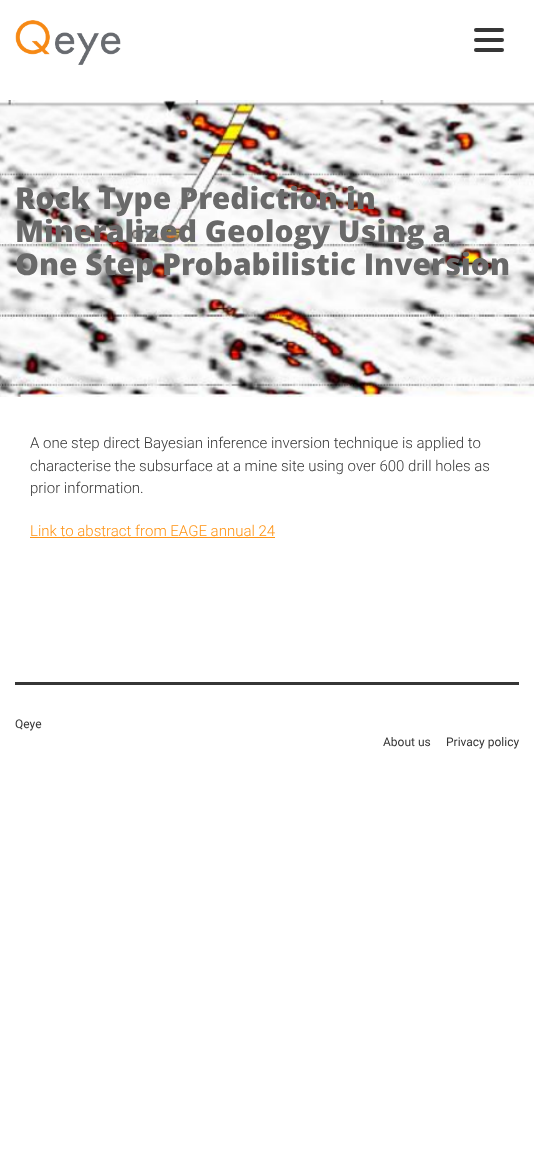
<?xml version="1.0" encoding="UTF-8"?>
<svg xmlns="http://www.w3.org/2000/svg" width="534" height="1154">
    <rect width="100%" height="100%" fill="#FFFFFF"/>
    <image x="15" y="20" width="106" height="45" href="img_01.png"/>
    <rect x="474" y="28" width="30" height="4" rx="2" fill="#363636"/>
    <rect x="474" y="38" width="30" height="4" rx="2" fill="#363636"/>
    <rect x="474" y="48" width="30" height="4" rx="2" fill="#363636"/>
    <image x="0" y="100" width="534" height="297" href="img_02.png"/>
    <text font-family="Open Sans" font-size="30" font-weight="800" fill="#696969">
        <tspan x="15" y="209">Rock Type Prediction in</tspan>
        <tspan x="15" y="242">Mineralized Geology Using a</tspan>
        <tspan x="15" y="275">One Step Probabilistic Inversion</tspan>
    </text>
    <text font-family="Roboto" font-size="15" font-weight="300" fill="#363636">
        <tspan x="30" y="448">A one step direct Bayesian inference inversion technique is applied to</tspan>
        <tspan x="30" y="471">characterise the subsurface at a mine site using over 600 drill holes as</tspan>
        <tspan x="30" y="493">prior information.</tspan>
    </text>
    <text x="30" y="536" font-family="Roboto" font-size="15" font-weight="300" fill="#FF9313">Link to abstract from EAGE annual 24</text>
    <rect x="30" y="537" width="245" height="1" fill="#FF9313"/>
    <rect x="15" y="682" width="504" height="3" fill="#363636"/>
    <text x="15" y="728" font-family="Roboto" font-size="12" fill="#363636">Qeye</text>
    <text x="383" y="746" font-family="Roboto" font-size="12" fill="#363636">About us</text>
    <text x="446" y="746" font-family="Roboto" font-size="12" fill="#363636">Privacy policy</text>
</svg>
